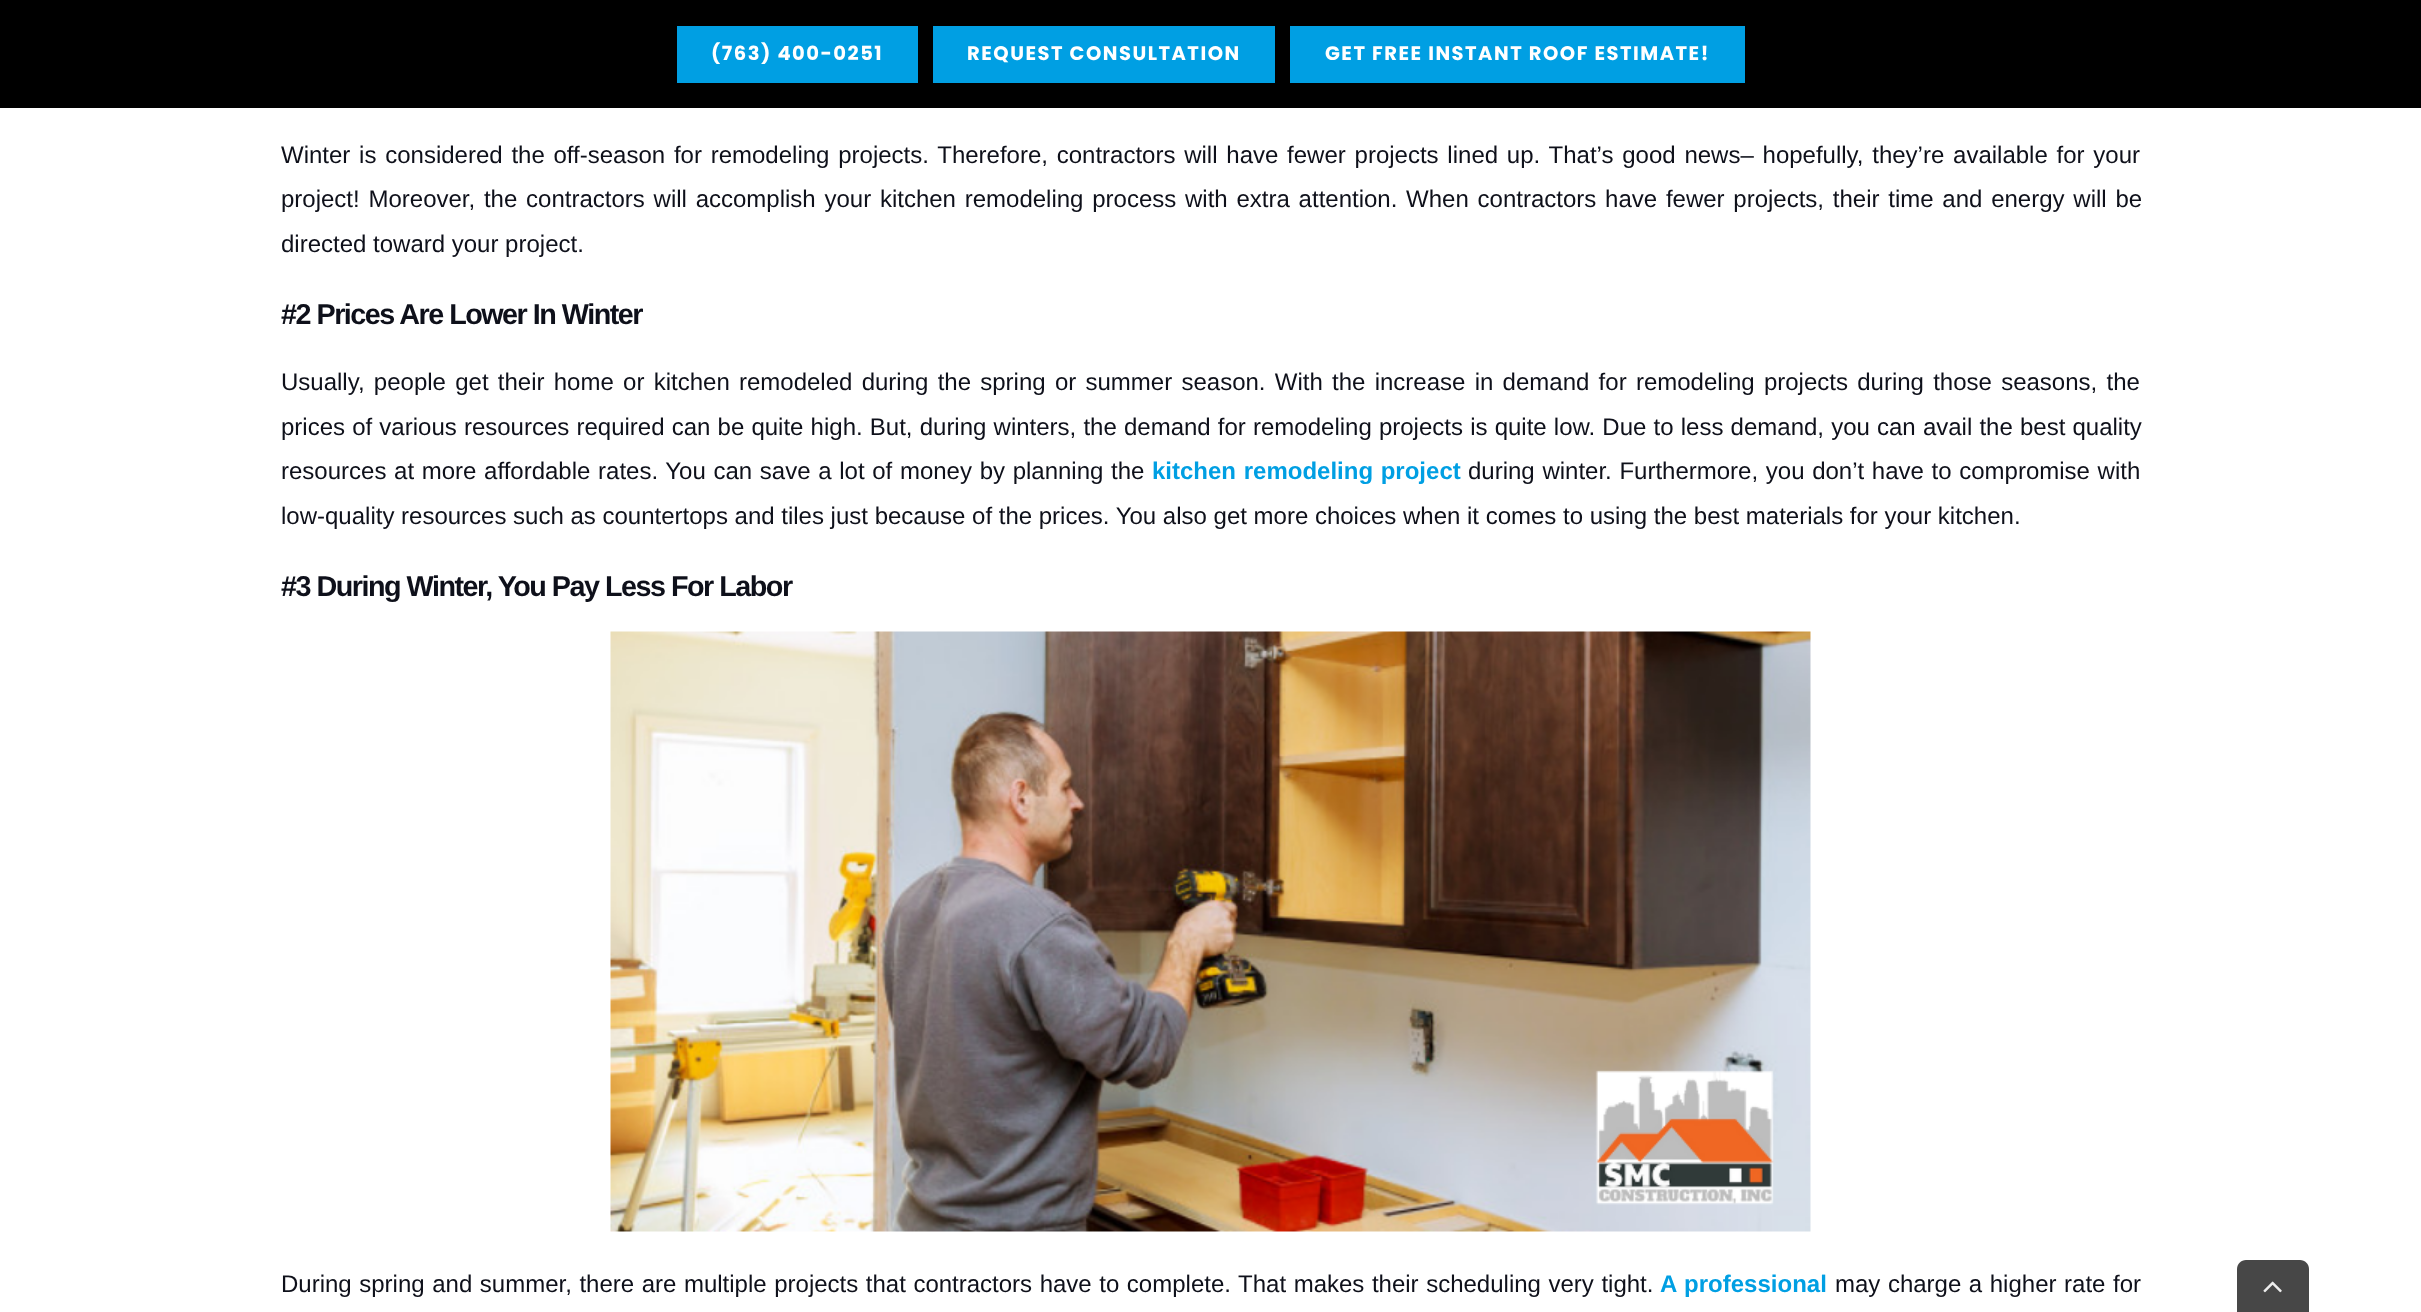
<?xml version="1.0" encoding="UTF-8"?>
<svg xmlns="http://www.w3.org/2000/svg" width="2421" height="1312">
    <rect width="100%" height="100%" fill="#FFFFFF"/>
    <rect x="0" y="0" width="2421" height="108" fill="#000000"/>
    <rect x="677" y="26" width="241" height="57" fill="#009FE3"/>
    <text x="711" y="60" font-family="Poppins" font-size="19.5" font-weight="700" letter-spacing="1.5" fill="#FFFFFF">(763) 400-0251</text>
    <rect x="933" y="26" width="342" height="57" fill="#009FE3"/>
    <text x="967" y="60" font-family="Poppins" font-size="19.5" font-weight="700" letter-spacing="1.5" fill="#FFFFFF">REQUEST CONSULTATION</text>
    <rect x="1290" y="26" width="455" height="57" fill="#009FE3"/>
    <text x="1325" y="60" font-family="Poppins" font-size="19.5" font-weight="700" letter-spacing="1.5" fill="#FFFFFF">GET FREE INSTANT ROOF ESTIMATE!</text>
    <text font-family="Liberation Sans" font-size="24" fill="#0E101A">
        <tspan x="281" y="163" word-spacing="2.1">Winter is considered the off-season for remodeling projects. Therefore, contractors will have fewer projects lined up. That’s good news– hopefully, they’re available for your</tspan>
        <tspan x="281" y="207" word-spacing="2.1">project! Moreover, the contractors will accomplish your kitchen remodeling process with extra attention. When contractors have fewer projects, their time and energy will be</tspan>
        <tspan x="281" y="252">directed toward your project.</tspan>
    </text>
    <text x="281" y="324" font-family="Liberation Sans" font-size="28.75" font-weight="700" letter-spacing="-1.5" fill="#0E101A">#2 Prices Are Lower In Winter</text>
    <text font-family="Liberation Sans" font-size="24" fill="#0E101A">
        <tspan x="281" y="390" word-spacing="2.6">Usually, people get their home or kitchen remodeled during the spring or summer season. With the increase in demand for remodeling projects during those seasons, the</tspan>
        <tspan x="281" y="435" word-spacing="0.5">prices of various resources required can be quite high. But, during winters, the demand for remodeling projects is quite low. Due to less demand, you can avail the best quality</tspan>
        <tspan x="281" y="479" word-spacing="1">resources at more affordable rates. You can save a lot of money by planning the</tspan>
    </text>
    <text x="1152" y="479" word-spacing="1" font-family="Liberation Sans" font-size="24" font-weight="700" fill="#009FE3">kitchen remodeling project</text>
    <text x="1468" y="479" word-spacing="1" font-family="Liberation Sans" font-size="24" fill="#0E101A">during winter. Furthermore, you don’t have to compromise with</text>
    <text x="281" y="524" font-family="Liberation Sans" font-size="24" fill="#0E101A">low-quality resources such as countertops and tiles just because of the prices. You also get more choices when it comes to using the best materials for your kitchen.</text>
    <text x="281" y="596" font-family="Liberation Sans" font-size="28.75" font-weight="700" letter-spacing="-1.5" fill="#0E101A">#3 During Winter, You Pay Less For Labor</text>
    <image x="610" y="631" width="1201" height="601" href="img_01.png"/>
    <text x="281" y="1292" word-spacing="0.9" font-family="Liberation Sans" font-size="24" fill="#0E101A">During spring and summer, there are multiple projects that contractors have to complete. That makes their scheduling very tight.</text>
    <text x="1660" y="1292" word-spacing="1" font-family="Liberation Sans" font-size="24" font-weight="700" fill="#009FE3">A professional</text>
    <text x="1835" y="1292" word-spacing="0.9" font-family="Liberation Sans" font-size="24" fill="#0E101A">may charge a higher rate for</text>
    <path d="M 2246 1260 H 2300 C 2305 1260 2309 1264 2309 1269 V 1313 H 2237 V 1269 C 2237 1264 2241 1260 2246 1260 Z" fill="#474747"/>
    <image x="2263" y="1281" width="19" height="12" href="img_02.png"/>
</svg>
